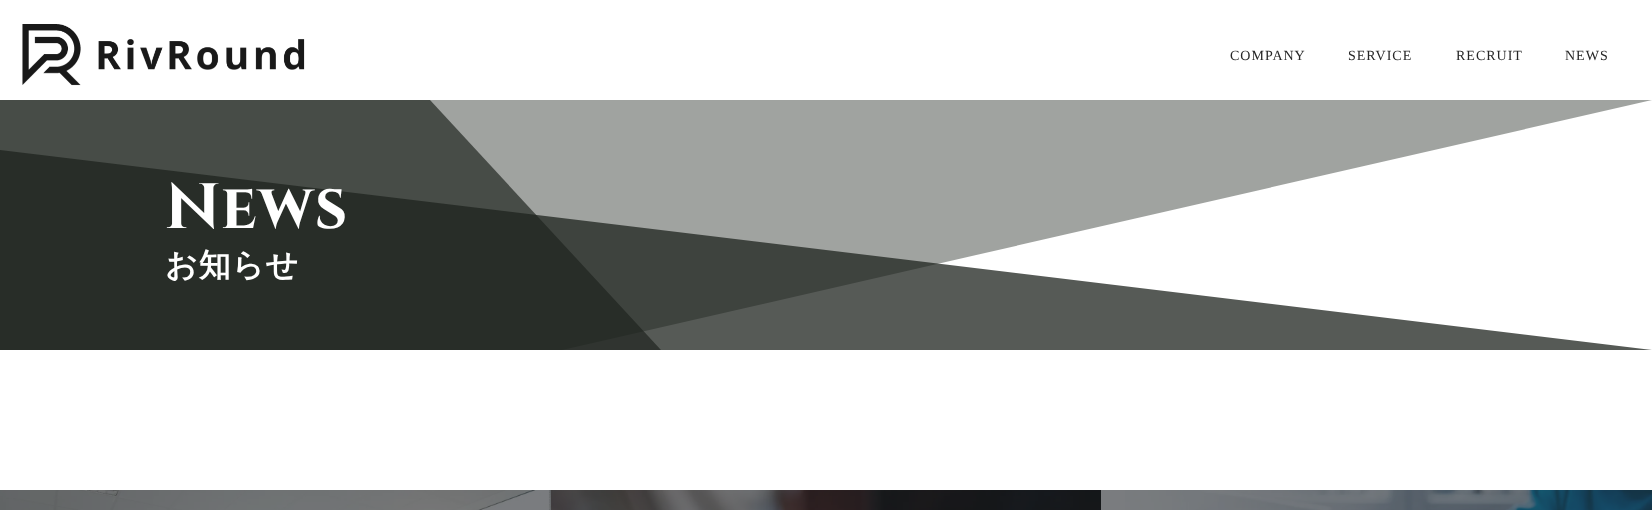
<?xml version="1.0" encoding="UTF-8"?>
<svg xmlns="http://www.w3.org/2000/svg" width="1652" height="510">
    <rect width="100%" height="100%" fill="#FFFFFF"/>
    <rect x="1101" y="490" width="24" height="20" fill="#7A7C7F"/>
    <image x="22" y="24" width="283" height="62" href="img_01.png"/>
    <text x="1230" y="60" font-family="Liberation Serif" font-size="14" letter-spacing="1" fill="#272727">COMPANY</text>
    <text x="1348" y="60" font-family="Liberation Serif" font-size="14" letter-spacing="1" fill="#272727">SERVICE</text>
    <text x="1456" y="60" font-family="Liberation Serif" font-size="14" letter-spacing="1" fill="#272727">RECRUIT</text>
    <text x="1565" y="60" font-family="Liberation Serif" font-size="14" letter-spacing="1" fill="#272727">NEWS</text>
    <path d="M 0 100 V 350 H 661 L 430 100 Z" fill="#676967"/>
    <path d="M 0 100 V 350 H 562 L 1652 100 Z" fill="#1D231D" fill-opacity="0.42"/>
    <path d="M 0 150 L 1652 350 H 0 Z" fill="#1D231D" fill-opacity="0.75"/>
    <text x="165" y="228" font-family="Cinzel" font-size="64" font-weight="700" letter-spacing="1" fill="#FFFFFF">News</text>
    <text x="165" y="276" font-family="WenQuanYi Zen Hei" font-size="32" font-weight="700" letter-spacing="1" fill="#FFFFFF">お知らせ</text>
    <image x="0" y="490" width="551" height="20" href="img_02.png"/>
    <image x="551" y="490" width="550" height="20" href="img_03.png"/>
    <image x="1125" y="490" width="527" height="20" href="img_04.png"/>
</svg>
